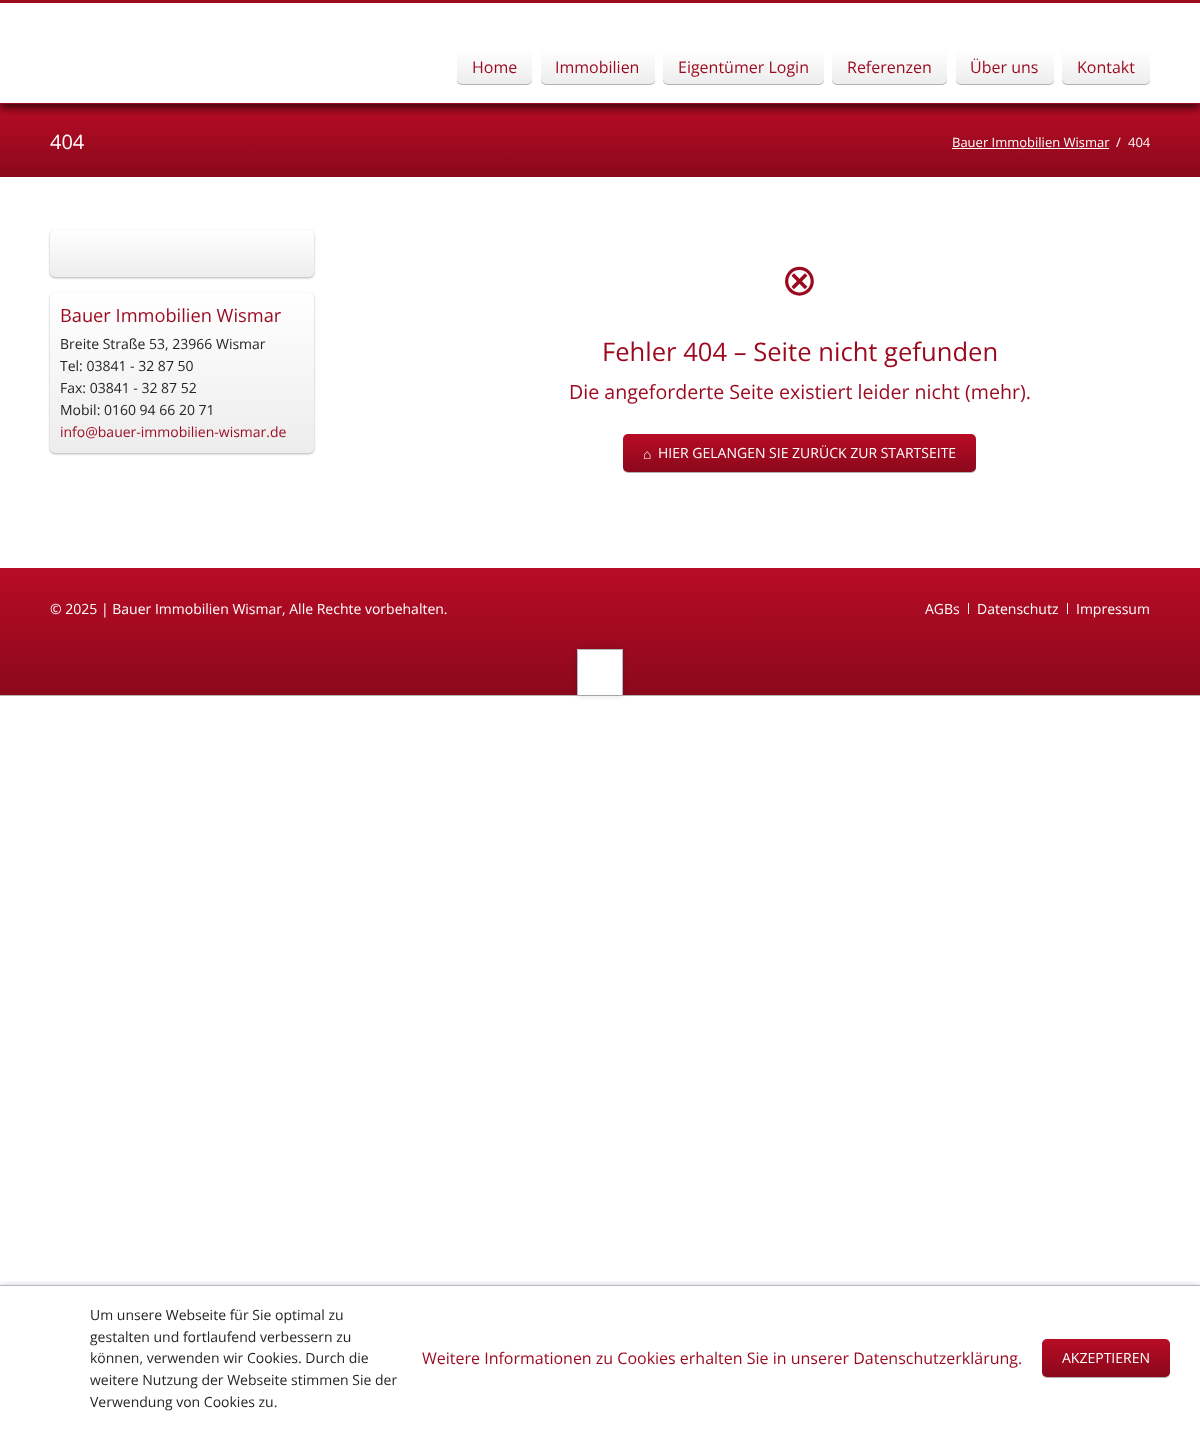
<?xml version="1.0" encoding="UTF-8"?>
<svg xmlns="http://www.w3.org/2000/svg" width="1200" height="1431">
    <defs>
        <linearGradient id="g1" gradientUnits="userSpaceOnUse" x1="600" y1="104" x2="600" y2="177"><stop offset="0" stop-color="#B80C25"/><stop offset="1" stop-color="#8B081B"/></linearGradient>
        <clipPath id="clip1"><rect x="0" y="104" width="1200" height="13"/></clipPath>
        <filter id="blur1" x="-50%" y="-200%" width="200%" height="500%"><feGaussianBlur stdDeviation="5"/></filter>
        <filter id="blur2" x="-50%" y="-200%" width="200%" height="500%"><feGaussianBlur stdDeviation="0.5"/></filter>
        <linearGradient id="g2" gradientUnits="userSpaceOnUse" x1="495" y1="49" x2="495" y2="84"><stop offset="0" stop-color="#FFFFFF"/><stop offset="1" stop-color="#EDEDED"/></linearGradient>
        <linearGradient id="g3" gradientUnits="userSpaceOnUse" x1="598" y1="49" x2="598" y2="84"><stop offset="0" stop-color="#FFFFFF"/><stop offset="1" stop-color="#EDEDED"/></linearGradient>
        <linearGradient id="g4" gradientUnits="userSpaceOnUse" x1="744" y1="49" x2="744" y2="84"><stop offset="0" stop-color="#FFFFFF"/><stop offset="1" stop-color="#EDEDED"/></linearGradient>
        <linearGradient id="g5" gradientUnits="userSpaceOnUse" x1="890" y1="49" x2="890" y2="84"><stop offset="0" stop-color="#FFFFFF"/><stop offset="1" stop-color="#EDEDED"/></linearGradient>
        <linearGradient id="g6" gradientUnits="userSpaceOnUse" x1="1005" y1="49" x2="1005" y2="84"><stop offset="0" stop-color="#FFFFFF"/><stop offset="1" stop-color="#EDEDED"/></linearGradient>
        <linearGradient id="g7" gradientUnits="userSpaceOnUse" x1="1106" y1="49" x2="1106" y2="84"><stop offset="0" stop-color="#FFFFFF"/><stop offset="1" stop-color="#EDEDED"/></linearGradient>
        <filter id="blur3" x="-50%" y="-200%" width="200%" height="500%"><feGaussianBlur stdDeviation="1"/></filter>
        <linearGradient id="g8" gradientUnits="userSpaceOnUse" x1="182" y1="230" x2="182" y2="277"><stop offset="0" stop-color="#FFFFFF"/><stop offset="1" stop-color="#EDEDED"/></linearGradient>
        <linearGradient id="g9" gradientUnits="userSpaceOnUse" x1="182" y1="293" x2="182" y2="453"><stop offset="0" stop-color="#FFFFFF"/><stop offset="1" stop-color="#EDEDED"/></linearGradient>
        <linearGradient id="g10" gradientUnits="userSpaceOnUse" x1="800" y1="434" x2="800" y2="472"><stop offset="0" stop-color="#B80C25"/><stop offset="1" stop-color="#8B081B"/></linearGradient>
        <linearGradient id="g11" gradientUnits="userSpaceOnUse" x1="600" y1="568" x2="600" y2="695"><stop offset="0" stop-color="#B80C25"/><stop offset="1" stop-color="#8B081B"/></linearGradient>
        <filter id="blur4" x="-50%" y="-200%" width="200%" height="500%"><feGaussianBlur stdDeviation="3.5"/></filter>
        <clipPath id="clip2"><rect x="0" y="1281" width="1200" height="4"/></clipPath>
        <filter id="blur5" x="-50%" y="-200%" width="200%" height="500%"><feGaussianBlur stdDeviation="2.5"/></filter>
        <linearGradient id="g12" gradientUnits="userSpaceOnUse" x1="1106" y1="1339" x2="1106" y2="1377"><stop offset="0" stop-color="#B80C25"/><stop offset="1" stop-color="#8B081B"/></linearGradient>
    </defs>
    <rect width="100%" height="100%" fill="#FFFFFF"/>
    <rect x="0" y="104" width="1200" height="73" fill="url(#g1)"/>
    <g clip-path="url(#clip1)">
        <rect x="0" y="4" width="1200" height="104" fill="#000000" fill-opacity="0.7" filter="url(#blur1)"/>
    </g>
    <rect x="0" y="0" width="1200" height="3" fill="#9B091E"/>
    <rect x="0" y="103" width="1200" height="1" fill="#9B091E"/>
    <rect x="457" y="50" width="75" height="35" rx="5" fill="#000000" fill-opacity="0.3" filter="url(#blur2)"/>
    <rect x="457" y="49" width="75" height="35" rx="5" fill="url(#g2)"/>
    <text x="472" y="73" font-family="Open Sans" font-size="16" fill="#9B091E">Home</text>
    <rect x="541" y="50" width="114" height="35" rx="5" fill="#000000" fill-opacity="0.3" filter="url(#blur2)"/>
    <rect x="541" y="49" width="114" height="35" rx="5" fill="url(#g3)"/>
    <text x="555" y="73" font-family="Open Sans" font-size="16" fill="#9B091E">Immobilien</text>
    <rect x="663" y="50" width="161" height="35" rx="5" fill="#000000" fill-opacity="0.3" filter="url(#blur2)"/>
    <rect x="663" y="49" width="161" height="35" rx="5" fill="url(#g4)"/>
    <text x="678" y="73" font-family="Open Sans" font-size="16" fill="#9B091E">Eigentümer Login</text>
    <rect x="832" y="50" width="115" height="35" rx="5" fill="#000000" fill-opacity="0.3" filter="url(#blur2)"/>
    <rect x="832" y="49" width="115" height="35" rx="5" fill="url(#g5)"/>
    <text x="847" y="73" font-family="Open Sans" font-size="16" fill="#9B091E">Referenzen</text>
    <rect x="956" y="50" width="98" height="35" rx="5" fill="#000000" fill-opacity="0.3" filter="url(#blur2)"/>
    <rect x="956" y="49" width="98" height="35" rx="5" fill="url(#g6)"/>
    <text x="970" y="73" font-family="Open Sans" font-size="16" fill="#9B091E">Über uns</text>
    <rect x="1062" y="50" width="88" height="35" rx="5" fill="#000000" fill-opacity="0.3" filter="url(#blur2)"/>
    <rect x="1062" y="49" width="88" height="35" rx="5" fill="url(#g7)"/>
    <text x="1077" y="73" font-family="Open Sans" font-size="16" fill="#9B091E">Kontakt</text>
    <text x="50" y="149" font-family="Open Sans" font-size="20" fill="#FFFFFF">404</text>
    <text x="952" y="147" font-family="Open Sans" font-size="13" fill="#FFFFFF">Bauer Immobilien Wismar</text>
    <rect x="952" y="148" width="157" height="1" fill="#FFFFFF"/>
    <text x="1116" y="147" font-family="Open Sans" font-size="13" fill="#FFFFFF">/</text>
    <text x="1128" y="147" font-family="Open Sans" font-size="13" fill="#FFFFFF">404</text>
    <rect x="50" y="231" width="264" height="47" rx="5" fill="#000000" fill-opacity="0.3" filter="url(#blur3)"/>
    <rect x="50" y="230" width="264" height="47" rx="5" fill="url(#g8)"/>
    <rect x="50" y="294" width="264" height="160" rx="5" fill="#000000" fill-opacity="0.3" filter="url(#blur3)"/>
    <rect x="50" y="293" width="264" height="160" rx="5" fill="url(#g9)"/>
    <text x="60" y="322" font-family="Open Sans" font-size="18.25" fill="#9B091E">Bauer Immobilien Wismar</text>
    <text font-family="Open Sans" font-size="14" fill="#242424">
        <tspan x="60" y="349">Breite Straße 53, 23966 Wismar</tspan>
        <tspan x="60" y="371">Tel: 03841 - 32 87 50</tspan>
        <tspan x="60" y="393">Fax: 03841 - 32 87 52</tspan>
        <tspan x="60" y="415">Mobil: 0160 94 66 20 71</tspan>
    </text>
    <text x="60" y="437" font-family="Open Sans" font-size="14" fill="#9B091E">info@bauer-immobilien-wismar.de</text>
    <text x="781" y="295" font-family="DejaVu Sans" font-size="44" fill="#9B091E">⊗</text>
    <text x="602" y="361" font-family="Open Sans" font-size="25.6" fill="#9B091E">Fehler 404 – Seite nicht gefunden</text>
    <text x="569" y="399" font-family="Open Sans" font-size="19.6" fill="#9B091E">Die angeforderte Seite existiert leider nicht (mehr).</text>
    <rect x="623" y="435" width="353" height="38" rx="5" fill="#000000" fill-opacity="0.3" filter="url(#blur2)"/>
    <rect x="623" y="434" width="353" height="38" rx="5" fill="url(#g10)"/>
    <text x="643" y="459" font-family="Liberation Serif" font-size="14" fill="#FFFFFF">⌂</text>
    <text x="658" y="458" font-family="Open Sans" font-size="14" fill="#FFFFFF">HIER GELANGEN SIE ZURÜCK ZUR STARTSEITE</text>
    <rect x="0" y="569" width="1200" height="127" fill="#000000" fill-opacity="0.3" filter="url(#blur2)"/>
    <rect x="0" y="568" width="1200" height="127" fill="url(#g11)"/>
    <text x="50" y="614" font-family="Open Sans" font-size="14" fill="#FFFFFF">© 2025 | Bauer Immobilien Wismar, Alle Rechte vorbehalten.</text>
    <text x="925" y="614" font-family="Open Sans" font-size="14" fill="#FFFFFF">AGBs</text>
    <rect x="968" y="603" width="1" height="11" fill="#FFFFFF"/>
    <text x="977" y="614" font-family="Open Sans" font-size="14" fill="#FFFFFF">Datenschutz</text>
    <rect x="1067" y="603" width="1" height="11" fill="#FFFFFF"/>
    <text x="1076" y="614" font-family="Open Sans" font-size="14" fill="#FFFFFF">Impressum</text>
    <rect x="577" y="649" width="46" height="46" rx="1" fill="#000000" fill-opacity="0.15" filter="url(#blur4)"/>
    <path d="M 578 649 H 622 C 622.5 649 623 649.5 623 650 V 695 H 577 V 650 C 577 649.5 577.5 649 578 649 Z" fill="#FFFFFF"/>
    <rect x="578" y="649" width="45" height="1" fill="#B2B9C4"/>
    <rect x="622" y="650" width="1" height="45" fill="#B2B9C4"/>
    <rect x="577" y="650" width="1" height="45" fill="#B2B9C4"/>
    <g clip-path="url(#clip2)">
        <rect x="0" y="1283" width="1200" height="146" fill="#000000" fill-opacity="0.1" filter="url(#blur5)"/>
    </g>
    <rect x="0" y="1285" width="1200" height="1" fill="#B2B9C4"/>
    <text font-family="Open Sans" font-size="14" fill="#242424">
        <tspan x="90" y="1320">Um unsere Webseite für Sie optimal zu</tspan>
        <tspan x="90" y="1342">gestalten und fortlaufend verbessern zu</tspan>
        <tspan x="90" y="1363">können, verwenden wir Cookies. Durch die</tspan>
        <tspan x="90" y="1385">weitere Nutzung der Webseite stimmen Sie der</tspan>
        <tspan x="90" y="1407">Verwendung von Cookies zu.</tspan>
    </text>
    <text x="422" y="1364" font-family="Open Sans" font-size="16" fill="#9B091E">Weitere Informationen zu Cookies erhalten Sie in unserer Datenschutzerklärung.</text>
    <rect x="1042" y="1340" width="128" height="38" rx="5" fill="#000000" fill-opacity="0.3" filter="url(#blur2)"/>
    <rect x="1042" y="1339" width="128" height="38" rx="5" fill="url(#g12)"/>
    <text x="1062" y="1363" font-family="Open Sans" font-size="14" fill="#FFFFFF">AKZEPTIEREN</text>
</svg>
